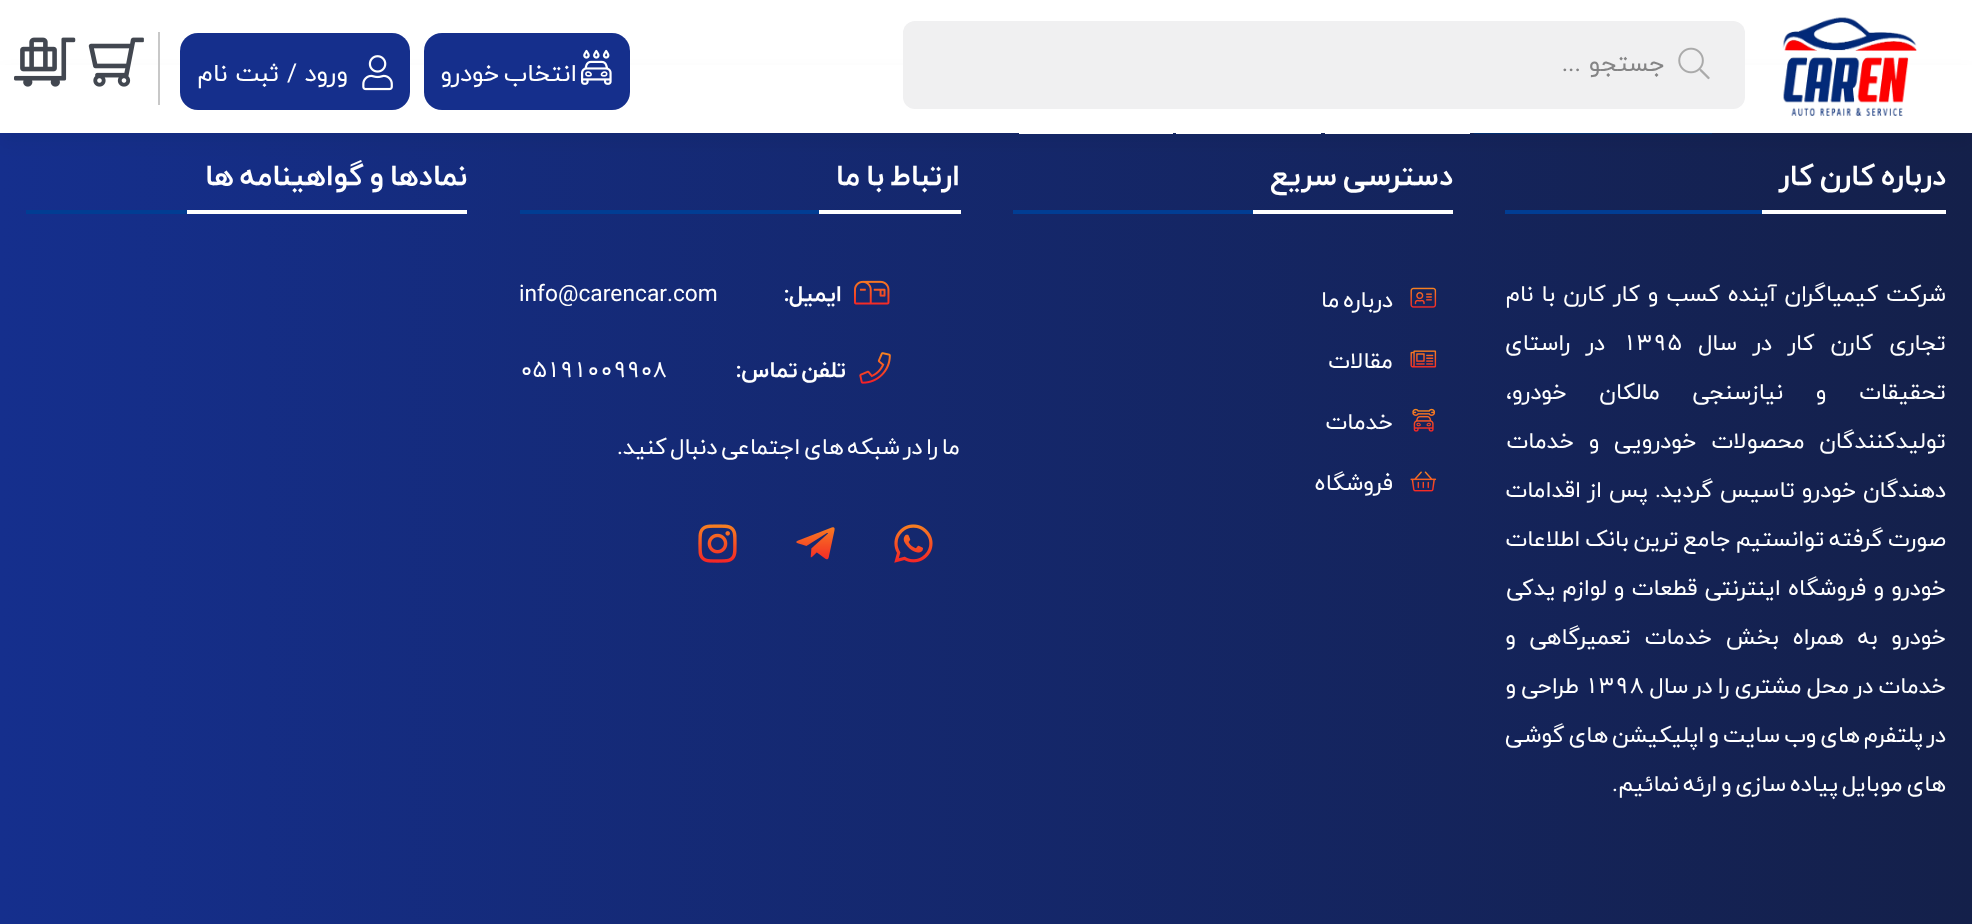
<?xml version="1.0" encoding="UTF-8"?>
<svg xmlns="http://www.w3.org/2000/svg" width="1972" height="924">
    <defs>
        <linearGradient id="g1" gradientUnits="userSpaceOnUse" x1="0" y1="508" x2="1972" y2="507"><stop offset="0" stop-color="#152F8D"/><stop offset="1" stop-color="#14204A"/></linearGradient>
        <filter id="blur1" x="-50%" y="-200%" width="200%" height="500%"><feGaussianBlur stdDeviation="7"/></filter>
    </defs>
    <rect width="100%" height="100%" fill="#FFFFFF"/>
    <rect x="0" y="133" width="1972" height="791" fill="url(#g1)"/>
    <rect x="0" y="70" width="1972" height="75" fill="#000000" fill-opacity="0.04" filter="url(#blur1)"/>
    <rect x="1474" y="133" width="238" height="1" fill="#002E70"/>
    <rect x="1325" y="133" width="145" height="1" fill="#FFFFFF"/>
    <rect x="1176" y="133" width="145" height="1" fill="#FFFFFF"/>
    <rect x="1019" y="133" width="154" height="1" fill="#FFFFFF"/>
    <rect x="0" y="65" width="1972" height="68" fill="#FFFFFF"/>
    <image x="1782" y="17" width="135" height="99" href="img_01.png"/>
    <rect x="903" y="21" width="842" height="88" rx="12" fill="#F0F0F1"/>
    <image x="1678" y="47" width="32" height="33" href="img_02.png"/>
    <text x="1665" y="71" font-family="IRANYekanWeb" font-size="24.5" direction="rtl" fill="#848485">جستجو</text>
    <text x="1581" y="71" font-family="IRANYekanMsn" font-size="24.5" direction="rtl" fill="#848485">...</text>
    <rect x="424" y="33" width="206" height="77" rx="18" fill="#152F8C"/>
    <image x="581" y="49" width="31" height="36" href="img_03.png"/>
    <text x="577" y="81" word-spacing="-3.5" font-family="IRANYekanWeb" font-size="24.5" direction="rtl" fill="#FFFFFF">انتخاب خودرو</text>
    <rect x="180" y="33" width="230" height="77" rx="18" fill="#152F8C"/>
    <image x="362" y="55" width="31" height="36" href="img_04.png"/>
    <text x="348" y="81" font-family="IRANYekanWeb" font-size="24.5" direction="rtl" fill="#FFFFFF">ورود</text>
    <text x="297" y="81" font-family="IRANYekanMsn" font-size="24.5" direction="rtl" fill="#FFFFFF">/</text>
    <text x="279" y="81" font-family="IRANYekanWeb" font-size="24.5" direction="rtl" fill="#FFFFFF">ثبت نام</text>
    <rect x="158" y="32" width="2" height="73" fill="#C8C8C8"/>
    <image x="88" y="37" width="56" height="50" href="img_05.png"/>
    <image x="14" y="37" width="62" height="50" href="img_06.png"/>
    <rect x="1505" y="210" width="257" height="4" fill="#013D93"/>
    <rect x="1762" y="210" width="184" height="4" fill="#FFFFFF"/>
    <text x="1946" y="185" word-spacing="-3.5" font-family="IRANYekanWeb" font-size="29.75" font-weight="700" direction="rtl" fill="#FFFFFF">درباره کارن کار</text>
    <text x="1946" y="301" word-spacing="0.75" font-family="IRANYekanWeb" font-size="22.75" direction="rtl" fill="#FFFFFF">شرکت کیمیاگران آینده کسب و کار کارن با نام</text>
    <text x="1946" y="350" word-spacing="9" font-family="IRANYekanWeb" font-size="22.75" direction="rtl" fill="#FFFFFF">تجاری کارن کار در سال</text>
    <text x="1622" y="350" font-family="IRANYekanMsn" font-size="22.75" fill="#FFFFFF">1395</text>
    <text x="1605" y="350" word-spacing="9" font-family="IRANYekanWeb" font-size="22.75" direction="rtl" fill="#FFFFFF">در راستای</text>
    <text x="1946" y="399" word-spacing="25.5" font-family="IRANYekanWeb" font-size="22.75" direction="rtl" fill="#FFFFFF">تحقیقات و نیازسنجی مالکان خودرو،</text>
    <text x="1946" y="448" word-spacing="7.5" font-family="IRANYekanWeb" font-size="22.75" direction="rtl" fill="#FFFFFF">تولیدکنندگان محصولات خودرویی و خدمات</text>
    <text x="1946" y="497" word-spacing="-0.5" font-family="IRANYekanWeb" font-size="22.75" direction="rtl" fill="#FFFFFF">دهندگان خودرو تاسیس گردید</text>
    <text x="1661" y="497" font-family="IRANYekanMsn" font-size="22.75" direction="rtl" fill="#FFFFFF">.</text>
    <text x="1648" y="497" word-spacing="-0.5" font-family="IRANYekanWeb" font-size="22.75" direction="rtl" fill="#FFFFFF">پس از اقدامات</text>
    <text x="1946" y="546" word-spacing="-2.5" font-family="IRANYekanWeb" font-size="22.75" direction="rtl" fill="#FFFFFF">صورت گرفته توانستیم جامع ترین بانک اطلاعات</text>
    <text x="1946" y="595" font-family="IRANYekanWeb" font-size="22.75" direction="rtl" fill="#FFFFFF">خودرو و فروشگاه اینترنتی قطعات و لوازم یدکی</text>
    <text x="1946" y="644" word-spacing="6.5" font-family="IRANYekanWeb" font-size="22.75" direction="rtl" fill="#FFFFFF">خودرو به همراه بخش خدمات تعمیرگاهی و</text>
    <text x="1946" y="693" word-spacing="-2" font-family="IRANYekanWeb" font-size="22.75" direction="rtl" fill="#FFFFFF">خدمات در محل مشتری را در سال</text>
    <text x="1584" y="693" font-family="IRANYekanMsn" font-size="22.75" fill="#FFFFFF">1398</text>
    <text x="1579" y="693" word-spacing="-2" font-family="IRANYekanWeb" font-size="22.75" direction="rtl" fill="#FFFFFF">طراحی و</text>
    <text x="1946" y="742" word-spacing="-3.25" font-family="IRANYekanWeb" font-size="22.75" direction="rtl" fill="#FFFFFF">در پلتفرم های وب سایت و اپلیکیشن های گوشی</text>
    <text x="1946" y="791" word-spacing="-3.5" font-family="IRANYekanWeb" font-size="22.75" direction="rtl" fill="#FFFFFF">های موبایل پیاده سازی و ارئه نمائیم</text>
    <text x="1618" y="791" font-family="IRANYekanMsn" font-size="22.75" direction="rtl" fill="#FFFFFF">.</text>
    <rect x="1013" y="210" width="240" height="4" fill="#013D93"/>
    <rect x="1253" y="210" width="200" height="4" fill="#FFFFFF"/>
    <text x="1453" y="185" word-spacing="-3.5" font-family="IRANYekanWeb" font-size="29.75" font-weight="700" direction="rtl" fill="#FFFFFF">دسترسی سریع</text>
    <image x="1410" y="287" width="27" height="21" href="img_07.png"/>
    <text x="1393" y="307" word-spacing="-3.5" font-family="IRANYekanWeb" font-size="22.75" direction="rtl" fill="#FFFFFF">درباره ما</text>
    <image x="1410" y="350" width="27" height="18" href="img_08.png"/>
    <text x="1393" y="368" font-family="IRANYekanWeb" font-size="22.75" direction="rtl" fill="#FFFFFF">مقالات</text>
    <image x="1412" y="408" width="23" height="24" href="img_09.png"/>
    <text x="1393" y="429" font-family="IRANYekanWeb" font-size="22.75" direction="rtl" fill="#FFFFFF">خدمات</text>
    <image x="1410" y="471" width="27" height="21" href="img_10.png"/>
    <text x="1393" y="490" font-family="IRANYekanWeb" font-size="22.75" direction="rtl" fill="#FFFFFF">فروشگاه</text>
    <rect x="520" y="210" width="299" height="4" fill="#013D93"/>
    <rect x="819" y="210" width="142" height="4" fill="#FFFFFF"/>
    <text x="960" y="185" word-spacing="-3.5" font-family="IRANYekanWeb" font-size="29.75" font-weight="700" direction="rtl" fill="#FFFFFF">ارتباط با ما</text>
    <image x="854" y="280" width="36" height="25" href="img_11.png"/>
    <text x="842" y="301" font-family="IRANYekanWeb" font-size="22.75" font-weight="700" direction="rtl" fill="#FFFFFF">ایمیل</text>
    <text x="789" y="301" font-family="IRANYekanMsn" font-size="22.75" font-weight="700" direction="rtl" fill="#FFFFFF">:</text>
    <text x="519" y="301" font-family="IRANYekanMsn" font-size="22.75" fill="#FFFFFF">info@carencar.com</text>
    <image x="859" y="352" width="32" height="32" href="img_12.png"/>
    <text x="846" y="377" word-spacing="-3.5" font-family="IRANYekanWeb" font-size="22.75" font-weight="700" direction="rtl" fill="#FFFFFF">تلفن تماس</text>
    <text x="741" y="377" font-family="IRANYekanMsn" font-size="22.75" font-weight="700" direction="rtl" fill="#FFFFFF">:</text>
    <text x="519" y="377" font-family="IRANYekanMsn" font-size="22.75" letter-spacing="-1.75" fill="#FFFFFF">05191009908</text>
    <text x="960" y="454" word-spacing="-3.5" font-family="IRANYekanWeb" font-size="22.75" direction="rtl" fill="#FFFFFF">ما را در شبکه های اجتماعی دنبال کنید</text>
    <text x="623" y="454" font-family="IRANYekanMsn" font-size="22.75" direction="rtl" fill="#FFFFFF">.</text>
    <image x="894" y="524" width="39" height="39" href="img_13.png"/>
    <image x="796" y="527" width="39" height="33" href="img_14.png"/>
    <image x="698" y="524" width="39" height="39" href="img_15.png"/>
    <rect x="26" y="210" width="161" height="4" fill="#013D93"/>
    <rect x="187" y="210" width="280" height="4" fill="#FFFFFF"/>
    <text x="467" y="185" word-spacing="-3.5" font-family="IRANYekanWeb" font-size="29.75" font-weight="700" direction="rtl" fill="#FFFFFF">نمادها و گواهینامه ها</text>
</svg>
